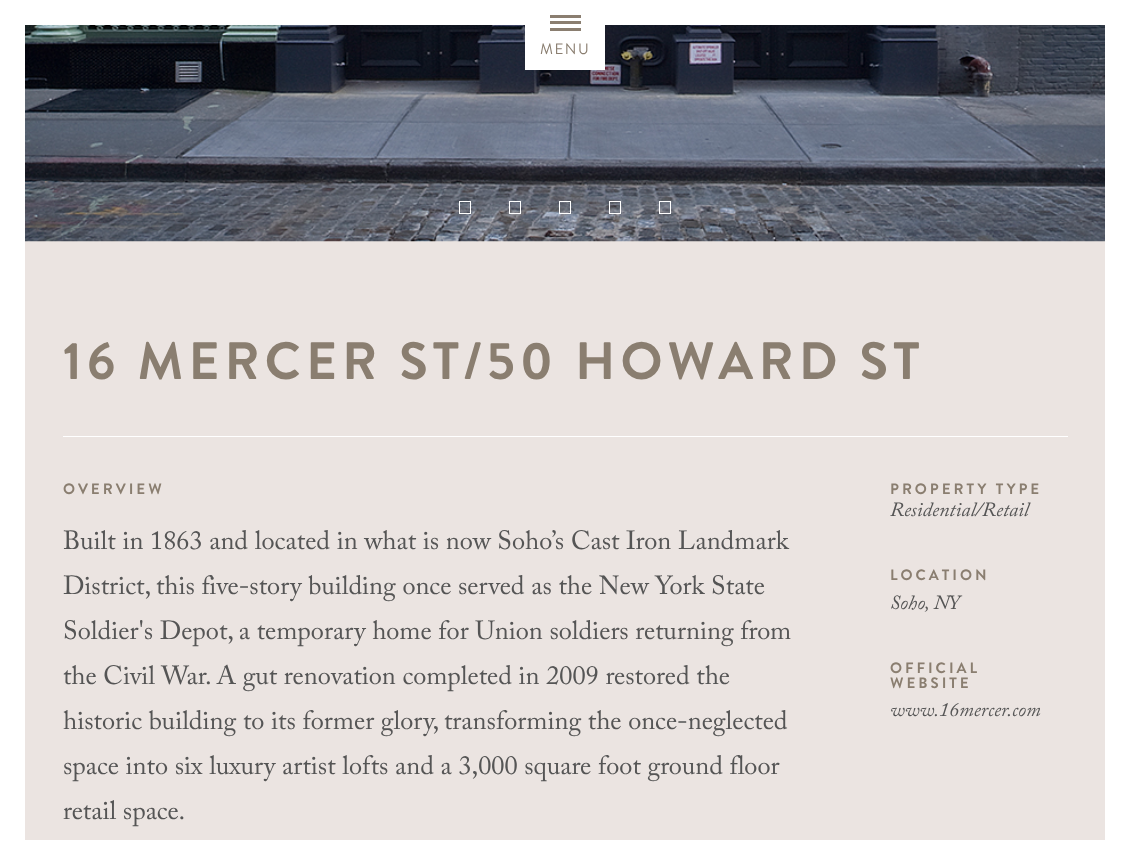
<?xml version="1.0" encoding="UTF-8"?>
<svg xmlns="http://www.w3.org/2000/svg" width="1129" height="865">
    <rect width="100%" height="100%" fill="#EBE4E1"/>
    <rect x="0" y="0" width="25" height="865" fill="#FFFFFF"/>
    <rect x="25" y="0" width="1080" height="25" fill="#FFFFFF"/>
    <rect x="1105" y="0" width="24" height="865" fill="#FFFFFF"/>
    <image x="25" y="25" width="1080" height="217" href="img_01.png"/>
    <rect x="525" y="25" width="80" height="45" fill="#FFFFFF"/>
    <rect x="550" y="15" width="31" height="3" fill="#8A7E70"/>
    <rect x="550" y="21" width="31" height="3" fill="#8A7E70"/>
    <rect x="550" y="28" width="31" height="3" fill="#8A7E70"/>
    <text x="540" y="54" font-family="Brandon Grotesque" font-size="15" letter-spacing="1.5" fill="#8A7E70">MENU</text>
    <rect x="459.5" y="201.5" width="11" height="12" fill="none" stroke="#FFFFFF"/>
    <rect x="509.5" y="201.5" width="11" height="12" fill="none" stroke="#FFFFFF"/>
    <rect x="559.5" y="201.5" width="11" height="12" fill="none" stroke="#FFFFFF"/>
    <rect x="609.5" y="201.5" width="11" height="12" fill="none" stroke="#FFFFFF"/>
    <rect x="659.5" y="201.5" width="11" height="12" fill="none" stroke="#FFFFFF"/>
    <text x="63" y="379" font-family="Brandon Grotesque" font-size="52.5" font-weight="700" letter-spacing="5.25" fill="#8A7E70">16 MERCER ST/50 HOWARD ST</text>
    <rect x="63" y="436" width="1005" height="1" fill="#FFFFFF"/>
    <text x="63" y="494" font-family="Brandon Grotesque" font-size="15" font-weight="700" letter-spacing="3" fill="#8A7E70">OVERVIEW</text>
    <text font-family="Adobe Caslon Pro" font-size="26.25" fill="#555555">
        <tspan x="63" y="549">Built in 1863 and located in what is now Soho’s Cast Iron Landmark</tspan>
        <tspan x="63" y="594">District, this five-story building once served as the New York State</tspan>
        <tspan x="63" y="639">Soldier's Depot, a temporary home for Union soldiers returning from</tspan>
        <tspan x="63" y="684">the Civil War. A gut renovation completed in 2009 restored the</tspan>
        <tspan x="63" y="729">historic building to its former glory, transforming the once-neglected</tspan>
        <tspan x="63" y="774">space into six luxury artist lofts and a 3,000 square foot ground floor</tspan>
        <tspan x="63" y="819">retail space.</tspan>
    </text>
    <text x="890" y="494" font-family="Brandon Grotesque" font-size="15" font-weight="700" letter-spacing="3" fill="#8A7E70">PROPERTY TYPE</text>
    <text x="890" y="516" font-family="Adobe Caslon Pro" font-size="20" font-style="italic" fill="#555555">Residential/Retail</text>
    <text x="890" y="580" font-family="Brandon Grotesque" font-size="15" font-weight="700" letter-spacing="3" fill="#8A7E70">LOCATION</text>
    <text x="890" y="609" font-family="Adobe Caslon Pro" font-size="20" font-style="italic" fill="#555555">Soho, NY</text>
    <text font-family="Brandon Grotesque" font-size="15" font-weight="700" letter-spacing="3" fill="#8A7E70">
        <tspan x="890" y="673">OFFICIAL</tspan>
        <tspan x="890" y="688">WEBSITE</tspan>
    </text>
    <text x="890" y="716" font-family="Adobe Caslon Pro" font-size="20" font-style="italic" fill="#555555">www.16mercer.com</text>
    <rect x="25" y="840" width="1080" height="25" fill="#FFFFFF"/>
</svg>
